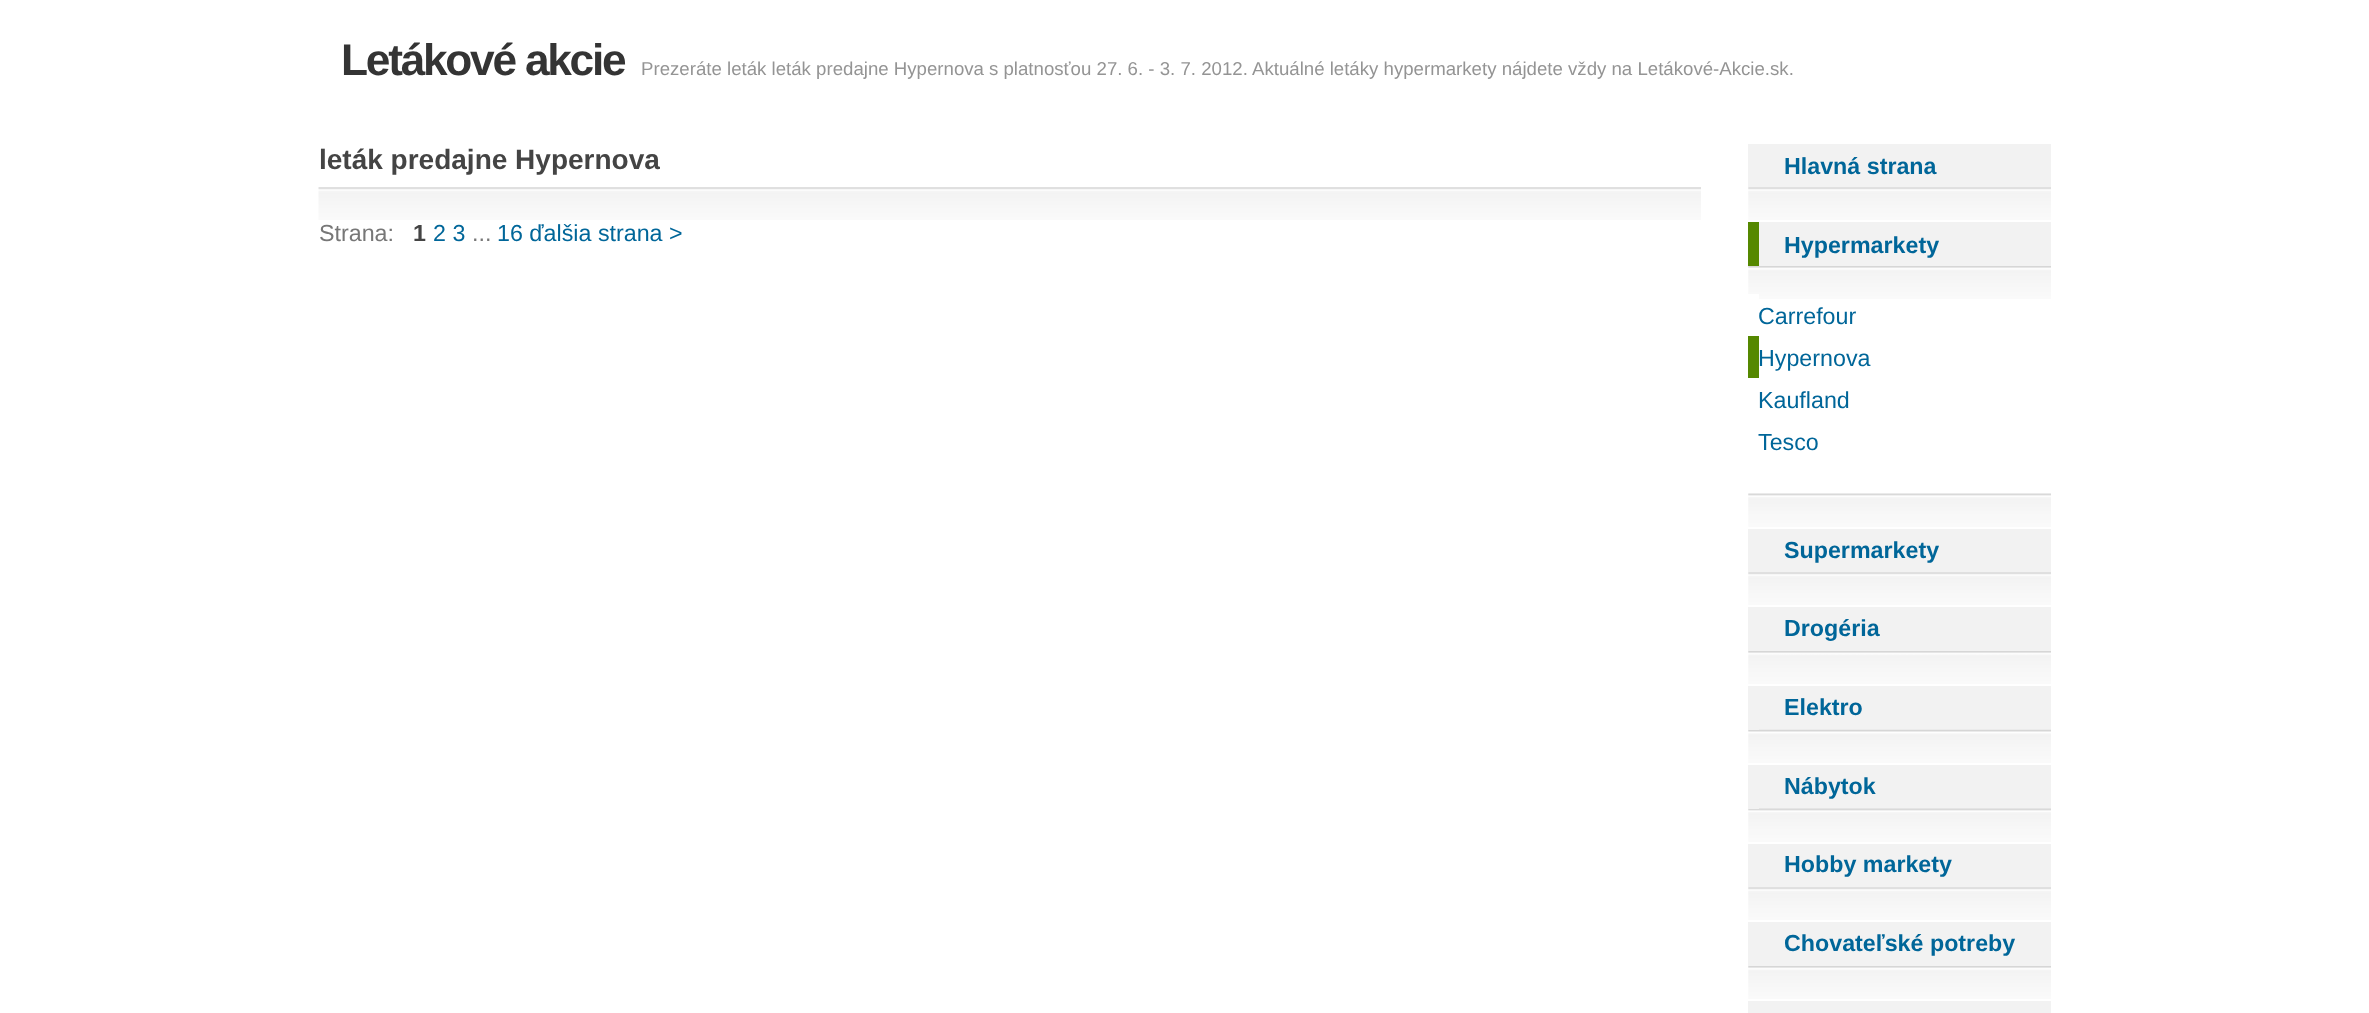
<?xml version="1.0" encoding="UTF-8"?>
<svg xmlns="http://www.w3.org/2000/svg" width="2369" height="1013">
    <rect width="100%" height="100%" fill="#FFFFFF"/>
    <text x="341" y="75" font-family="Liberation Sans" font-size="44.25" font-weight="700" letter-spacing="-2.25" fill="#343434">Letákové akcie</text>
    <text x="641" y="75" font-family="Liberation Sans" font-size="18.65" fill="#949494">Prezeráte leták leták predajne Hypernova</text>
    <text x="989" y="75" font-family="Liberation Sans" font-size="18.65" fill="#949494">s platnosťou 27. 6. - 3. 7. 2012. Aktuálné letáky hypermarkety nájdete vždy na Letákové-Akcie.sk.</text>
    <text x="319" y="169" font-family="Liberation Sans" font-size="28" font-weight="700" fill="#444444">leták predajne Hypernova</text>
    <image x="318" y="187" width="1383" height="33" href="img_01.png"/>
    <text x="319" y="241" font-family="Liberation Sans" font-size="23.25" fill="#777777">Strana:</text>
    <text x="413" y="241" font-family="Liberation Sans" font-size="23.25" font-weight="700" fill="#444444">1</text>
    <text x="433" y="241" font-family="Liberation Sans" font-size="23.25" fill="#006699">2 3</text>
    <text x="472" y="241" font-family="Liberation Sans" font-size="23.25" fill="#777777">...</text>
    <text x="497" y="241" font-family="Liberation Sans" font-size="23.25" fill="#006699">16 ďalšia strana &gt;</text>
    <rect x="1748" y="144" width="303" height="43" fill="#F2F2F2"/>
    <text x="1784" y="174" font-family="Liberation Sans" font-size="23.25" font-weight="700" fill="#006699">Hlavná strana</text>
    <image x="1748" y="187" width="303" height="33" href="img_02.png"/>
    <rect x="1759" y="222" width="292" height="44" fill="#F2F2F2"/>
    <text x="1784" y="253" font-family="Liberation Sans" font-size="23.25" font-weight="700" fill="#006699">Hypermarkety</text>
    <rect x="1748" y="222" width="11" height="44" fill="#558800"/>
    <image x="1748" y="266" width="303" height="33" href="img_03.png"/>
    <text x="1758" y="324" font-family="Liberation Sans" font-size="23.25" fill="#006699">Carrefour</text>
    <rect x="1748" y="294" width="11" height="5" fill="#FFFFFF"/>
    <text x="1758" y="366" font-family="Liberation Sans" font-size="23.25" fill="#006699">Hypernova</text>
    <rect x="1748" y="336" width="11" height="42" fill="#558800"/>
    <text font-family="Liberation Sans" font-size="23.25" fill="#006699">
        <tspan x="1758" y="408">Kaufland</tspan>
        <tspan x="1758" y="450">Tesco</tspan>
    </text>
    <image x="1748" y="493" width="303" height="34" href="img_04.png"/>
    <rect x="1748" y="529" width="303" height="43" fill="#F2F2F2"/>
    <text x="1784" y="558" font-family="Liberation Sans" font-size="23.25" font-weight="700" fill="#006699">Supermarkety</text>
    <image x="1748" y="572" width="303" height="33" href="img_02.png"/>
    <rect x="1748" y="607" width="303" height="44" fill="#F2F2F2"/>
    <text x="1784" y="636" font-family="Liberation Sans" font-size="23.25" font-weight="700" fill="#006699">Drogéria</text>
    <image x="1748" y="651" width="303" height="33" href="img_05.png"/>
    <rect x="1759" y="686" width="292" height="44" fill="#F2F2F2"/>
    <text x="1784" y="715" font-family="Liberation Sans" font-size="23.25" font-weight="700" fill="#006699">Elektro</text>
    <image x="1748" y="729" width="303" height="34" href="img_06.png"/>
    <rect x="1748" y="686" width="11" height="44" fill="#F2F2F2"/>
    <rect x="1759" y="765" width="292" height="44" fill="#F2F2F2"/>
    <text x="1784" y="794" font-family="Liberation Sans" font-size="23.25" font-weight="700" fill="#006699">Nábytok</text>
    <image x="1748" y="808" width="303" height="34" href="img_07.png"/>
    <rect x="1748" y="765" width="11" height="44" fill="#F2F2F2"/>
    <rect x="1748" y="844" width="303" height="43" fill="#F2F2F2"/>
    <text x="1784" y="872" font-family="Liberation Sans" font-size="23.25" font-weight="700" fill="#006699">Hobby markety</text>
    <image x="1748" y="887" width="303" height="33" href="img_02.png"/>
    <rect x="1748" y="922" width="303" height="44" fill="#F2F2F2"/>
    <text x="1784" y="951" font-family="Liberation Sans" font-size="23.25" font-weight="700" fill="#006699">Chovateľské potreby</text>
    <image x="1748" y="966" width="303" height="33" href="img_03.png"/>
    <rect x="1748" y="1001" width="303" height="12" fill="#F2F2F2"/>
</svg>
